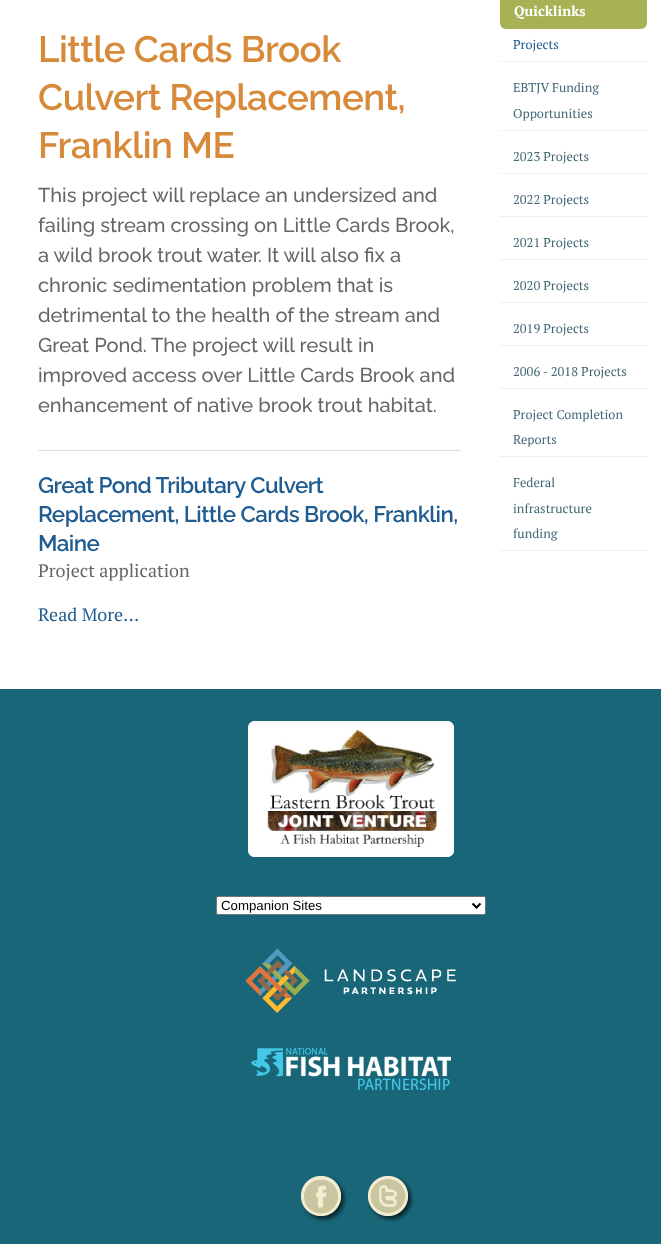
<?xml version="1.0" encoding="UTF-8"?>
<svg xmlns="http://www.w3.org/2000/svg" width="661" height="1244">
    <rect width="100%" height="100%" fill="#FFFFFF"/>
    <text font-family="Raleway" font-size="36.75" font-weight="600" letter-spacing="-0.5" fill="#D68A3A">
        <tspan x="38" y="62">Little Cards Brook</tspan>
        <tspan x="38" y="110">Culvert Replacement,</tspan>
        <tspan x="38" y="158">Franklin ME</tspan>
    </text>
    <text font-family="Raleway" font-size="20" font-weight="500" fill="#666666">
        <tspan x="38" y="202">This project will replace an undersized and</tspan>
        <tspan x="38" y="232">failing stream crossing on Little Cards Brook,</tspan>
        <tspan x="38" y="262">a wild brook trout water. It will also fix a</tspan>
        <tspan x="38" y="292">chronic sedimentation problem that is</tspan>
        <tspan x="38" y="322">detrimental to the health of the stream and</tspan>
        <tspan x="38" y="352">Great Pond.</tspan>
    </text>
    <text x="151" y="352" font-family="Raleway" font-size="20" font-weight="500" fill="#666666">The project will result in</text>
    <text font-family="Raleway" font-size="20" font-weight="500" fill="#666666">
        <tspan x="38" y="382">improved access over Little Cards Brook and</tspan>
        <tspan x="38" y="412">enhancement of native brook trout habitat.</tspan>
    </text>
    <rect x="38" y="450" width="423" height="1" fill="#DEDEDE"/>
    <text font-family="Raleway" font-size="22.4" font-weight="600" letter-spacing="-0.55" fill="#205C90">
        <tspan x="38" y="493">Great Pond Tributary Culvert</tspan>
        <tspan x="38" y="522">Replacement, Little Cards Brook, Franklin,</tspan>
        <tspan x="38" y="551">Maine</tspan>
    </text>
    <text x="38" y="577" font-family="PT Serif" font-size="18" fill="#666666">Project application</text>
    <text x="38" y="621" font-family="PT Serif" font-size="18" fill="#205C90">Read More…</text>
    <rect x="500" y="-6" width="147" height="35" rx="6" fill="#A7B254"/>
    <text x="514" y="16" font-family="PT Serif" font-size="14" font-weight="700" fill="#FFFFFF">Quicklinks</text>
    <path d="M 500 61.5 H 647" fill="none" stroke="#DDDDDD" stroke-dasharray="1 1"/>
    <text x="513" y="49" font-family="PT Serif" font-size="12.75" fill="#205C90">Projects</text>
    <path d="M 500 130.5 H 647" fill="none" stroke="#DDDDDD" stroke-dasharray="1 1"/>
    <text x="513" y="92" font-family="PT Serif" font-size="12.75" fill="#436976">EBTJV Funding</text>
    <text x="513" y="118" font-family="PT Serif" font-size="12.75" fill="#436976">Opportunities</text>
    <path d="M 500 173.5 H 647" fill="none" stroke="#DDDDDD" stroke-dasharray="1 1"/>
    <text x="513" y="161" font-family="PT Serif" font-size="12.75" fill="#436976">2023 Projects</text>
    <path d="M 500 216.5 H 647" fill="none" stroke="#DDDDDD" stroke-dasharray="1 1"/>
    <text x="513" y="204" font-family="PT Serif" font-size="12.75" fill="#436976">2022 Projects</text>
    <path d="M 500 259.5 H 647" fill="none" stroke="#DDDDDD" stroke-dasharray="1 1"/>
    <text x="513" y="247" font-family="PT Serif" font-size="12.75" fill="#436976">2021 Projects</text>
    <path d="M 500 302.5 H 647" fill="none" stroke="#DDDDDD" stroke-dasharray="1 1"/>
    <text x="513" y="290" font-family="PT Serif" font-size="12.75" fill="#436976">2020 Projects</text>
    <path d="M 500 345.5 H 647" fill="none" stroke="#DDDDDD" stroke-dasharray="1 1"/>
    <text x="513" y="333" font-family="PT Serif" font-size="12.75" fill="#436976">2019 Projects</text>
    <path d="M 500 388.5 H 647" fill="none" stroke="#DDDDDD" stroke-dasharray="1 1"/>
    <text x="513" y="376" font-family="PT Serif" font-size="12.75" fill="#436976">2006 - 2018 Projects</text>
    <path d="M 500 456.5 H 647" fill="none" stroke="#DDDDDD" stroke-dasharray="1 1"/>
    <text font-family="PT Serif" font-size="12.75" fill="#436976">
        <tspan x="513" y="419">Project Completion</tspan>
        <tspan x="513" y="444">Reports</tspan>
    </text>
    <path d="M 500 550.5 H 647" fill="none" stroke="#DDDDDD" stroke-dasharray="1 1"/>
    <text x="513" y="487" font-family="PT Serif" font-size="12.75" fill="#436976">Federal</text>
    <text font-family="PT Serif" font-size="12.75" fill="#436976">
        <tspan x="513" y="513">infrastructure</tspan>
        <tspan x="513" y="538">funding</tspan>
    </text>
    <rect x="0" y="689" width="661" height="555" fill="#196678"/>
    <image x="248" y="721" width="206" height="136" href="img_01.png"/>
    <rect x="216.5" y="896.5" width="269" height="18" rx="1.5" fill="#FFFFFF" stroke="#767676"/>
    <path d="M 472.5 903.5 L 476.5 907.5 L 480.5 903.5" fill="none" stroke="#000000" stroke-width="2"/>
    <text x="221" y="910" font-family="Liberation Sans" font-size="13.25" fill="#000000">Companion Sites</text>
    <image x="245" y="948" width="211" height="65" href="img_02.png"/>
    <image x="251" y="1048" width="200" height="42" href="img_03.png"/>
    <image x="301" y="1176" width="46" height="46" href="img_04.png"/>
    <image x="368" y="1176" width="46" height="46" href="img_05.png"/>
</svg>
